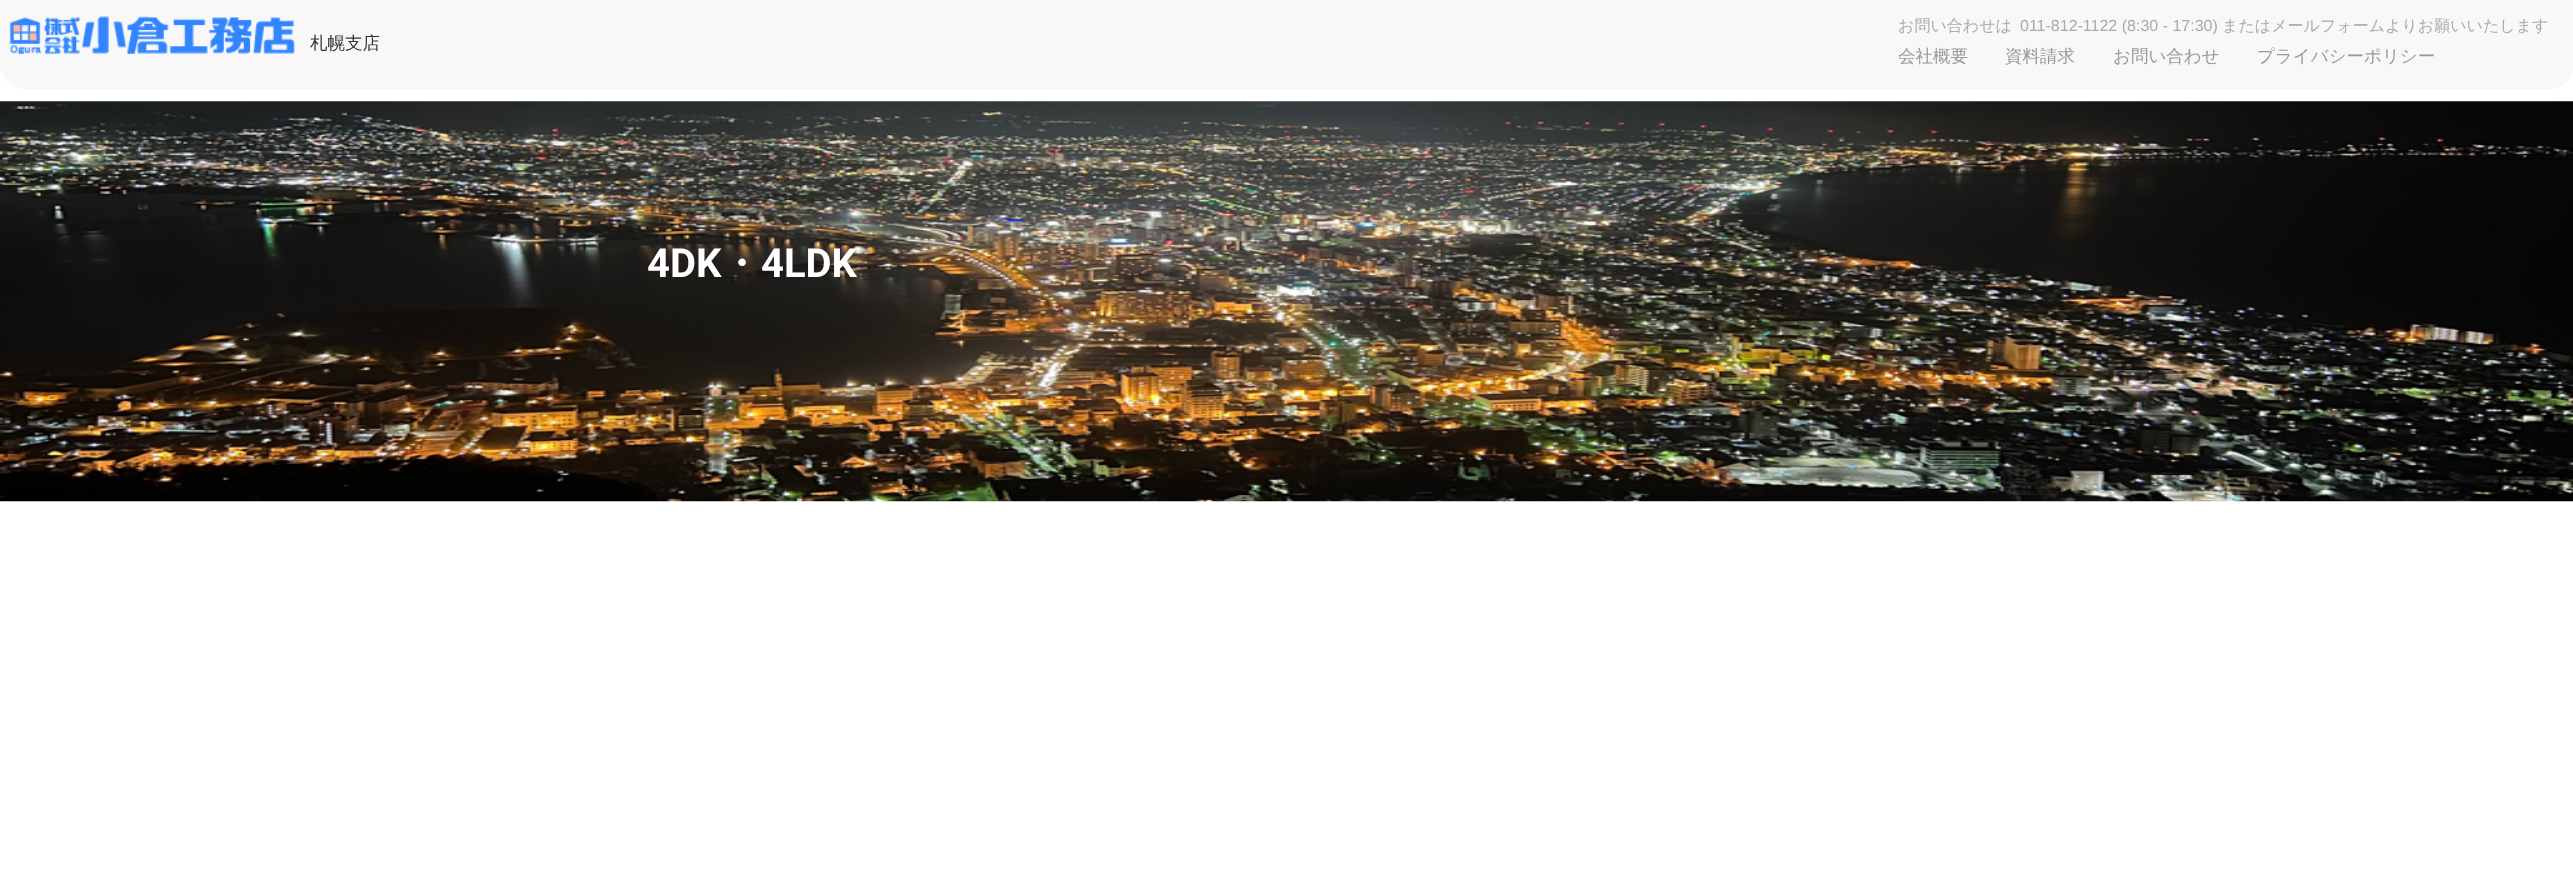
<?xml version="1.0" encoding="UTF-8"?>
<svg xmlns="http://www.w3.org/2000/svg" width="2573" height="874">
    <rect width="100%" height="100%" fill="#FFFFFF"/>
    <path d="M 0 0 H 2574 V 64 C 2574 78 2563 89 2549 89 H 25 C 11 89 0 78 0 64 Z" fill="#F8F8F8"/>
    <image x="9" y="16" width="287" height="38" href="img_01.png"/>
    <text x="310" y="49" font-family="WenQuanYi Zen Hei" font-size="17.5" font-weight="500" fill="#333333">札幌支店</text>
    <text x="1898" y="31" font-family="WenQuanYi Zen Hei" font-size="16" font-weight="500" fill="#AAAAAA">お問い合わせは</text>
    <text x="2020" y="31" font-family="Liberation Sans" font-size="16" fill="#AAAAAA">011-812-1122 (8:30 - 17:30)</text>
    <text x="2222" y="31" font-family="WenQuanYi Zen Hei" font-size="16" font-weight="500" fill="#AAAAAA">またはメールフォームよりお願いいたします</text>
    <text x="1898" y="62" font-family="WenQuanYi Zen Hei" font-size="17.5" font-weight="500" fill="#999999">会社概要</text>
    <text x="2005" y="62" font-family="WenQuanYi Zen Hei" font-size="17.5" font-weight="500" fill="#999999">資料請求</text>
    <text x="2113" y="62" font-family="WenQuanYi Zen Hei" font-size="17.5" font-weight="500" fill="#999999">お問い合わせ</text>
    <text x="2257" y="62" font-family="WenQuanYi Zen Hei" font-size="17.5" font-weight="500" fill="#999999">プライバシーポリシー</text>
    <image x="0" y="101" width="2573" height="401" href="img_02.png"/>
    <text x="647" y="277" font-family="Roboto" font-size="40" font-weight="700" fill="#FFFFFF">4DK</text>
    <text x="721" y="277" font-family="WenQuanYi Zen Hei" font-size="40" font-weight="700" fill="#FFFFFF">・</text>
    <text x="761" y="277" font-family="Roboto" font-size="40" font-weight="700" fill="#FFFFFF">4LDK</text>
</svg>
